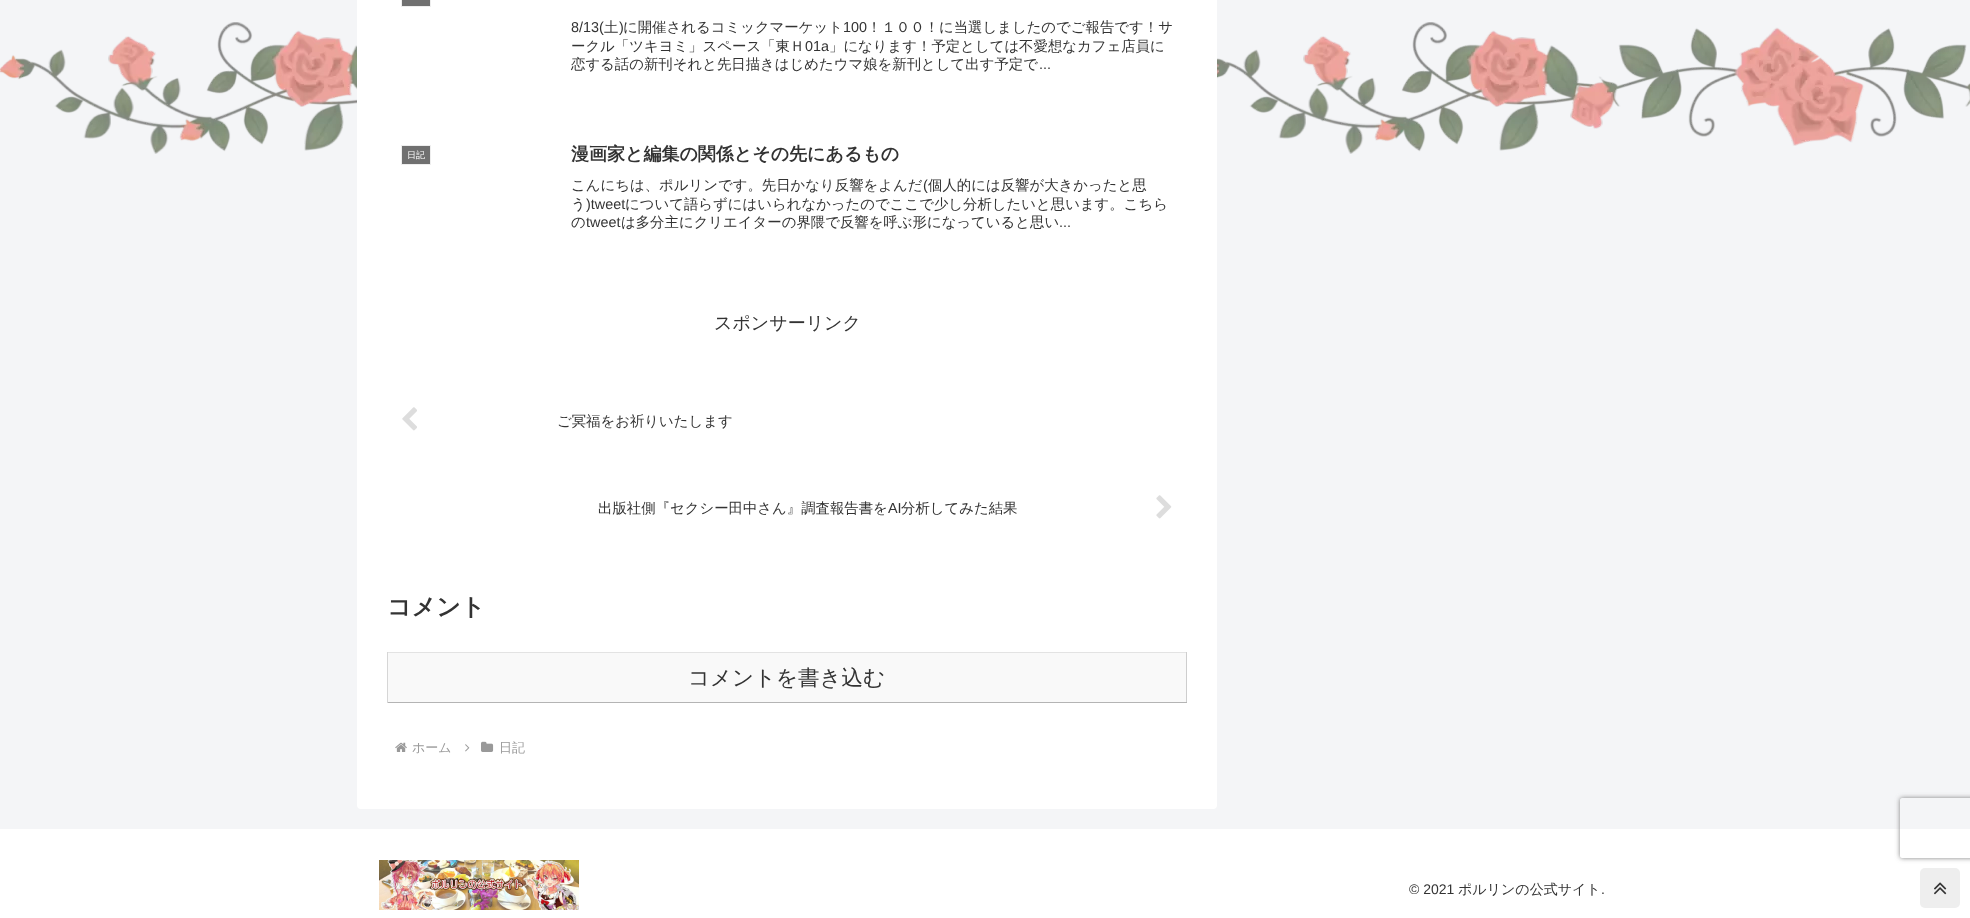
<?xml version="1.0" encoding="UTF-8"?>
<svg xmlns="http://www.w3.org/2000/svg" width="1970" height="918">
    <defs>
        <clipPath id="clip1"><path d="M 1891 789 H 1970 V 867 H 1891 Z M 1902 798 H 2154 C 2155 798 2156 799 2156 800 V 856 C 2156 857 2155 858 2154 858 H 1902 C 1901 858 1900 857 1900 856 V 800 C 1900 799 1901 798 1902 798 Z" clip-rule="evenodd"/></clipPath>
        <filter id="blur1" x="-50%" y="-200%" width="200%" height="500%"><feGaussianBlur stdDeviation="2.5"/></filter>
    </defs>
    <rect width="100%" height="100%" fill="#F4F5F7"/>
    <image x="0" y="22" width="1970" height="132" href="img_01.png"/>
    <rect x="357" y="-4" width="860" height="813" rx="4" fill="#FFFFFF"/>
    <rect x="401.5" y="-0.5" width="29" height="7" fill="#707070" stroke="#EEEEEE"/>
    <text x="571" y="32" font-family="Liberation Sans" font-size="14.4" fill="#333333">8/13(</text>
    <text x="604" y="32" font-family="WenQuanYi Zen Hei" font-size="14.4" font-weight="500" fill="#333333">土</text>
    <text x="619" y="32" font-family="Liberation Sans" font-size="14.4" fill="#333333">)</text>
    <text x="623" y="32" font-family="WenQuanYi Zen Hei" font-size="14.4" font-weight="500" fill="#333333">に開催されるコミックマーケット</text>
    <text x="843" y="32" font-family="Liberation Sans" font-size="14.4" fill="#333333">100</text>
    <text x="867" y="32" font-family="WenQuanYi Zen Hei" font-size="14.4" font-weight="500" fill="#333333">！１００！に当選しましたのでご報告です！サ</text>
    <text x="571" y="51" font-family="WenQuanYi Zen Hei" font-size="14.4" font-weight="500" fill="#333333">ークル「ツキヨミ」スペース「東Ｈ</text>
    <text x="805" y="51" font-family="Liberation Sans" font-size="14.4" fill="#333333">01a</text>
    <text x="829" y="51" font-family="WenQuanYi Zen Hei" font-size="14.4" font-weight="500" fill="#333333">」になります！予定としては不愛想なカフェ店員に</text>
    <text x="571" y="69" font-family="WenQuanYi Zen Hei" font-size="14.4" font-weight="500" fill="#333333">恋する話の新刊それと先日描きはじめたウマ娘を新刊として出す予定で</text>
    <text x="1039" y="69" font-family="Liberation Sans" font-size="14.4" fill="#333333">...</text>
    <rect x="401.5" y="145.5" width="29" height="19" fill="#707070" stroke="#EEEEEE"/>
    <text x="407" y="158" font-family="WenQuanYi Zen Hei" font-size="9" font-weight="500" fill="#FFFFFF">日記</text>
    <text x="571" y="160" font-family="WenQuanYi Zen Hei" font-size="18" font-weight="700" fill="#333333">漫画家と編集の関係とその先にあるもの</text>
    <text x="571" y="190" font-family="WenQuanYi Zen Hei" font-size="14.4" font-weight="500" fill="#333333">こんにちは、ポルリンです。先日かなり反響をよんだ</text>
    <text x="923" y="190" font-family="Liberation Sans" font-size="14.4" fill="#333333">(</text>
    <text x="928" y="190" font-family="WenQuanYi Zen Hei" font-size="14.4" font-weight="500" fill="#333333">個人的には反響が大きかったと思</text>
    <text x="571" y="209" font-family="WenQuanYi Zen Hei" font-size="14.4" font-weight="500" fill="#333333">う</text>
    <text x="586" y="209" font-family="Liberation Sans" font-size="14.4" fill="#333333">)tweet</text>
    <text x="625" y="209" font-family="WenQuanYi Zen Hei" font-size="14.4" font-weight="500" fill="#333333">について語らずにはいられなかったのでここで少し分析したいと思います。こちら</text>
    <text x="571" y="227" font-family="WenQuanYi Zen Hei" font-size="14.4" font-weight="500" fill="#333333">の</text>
    <text x="586" y="227" font-family="Liberation Sans" font-size="14.4" fill="#333333">tweet</text>
    <text x="621" y="227" font-family="WenQuanYi Zen Hei" font-size="14.4" font-weight="500" fill="#333333">は多分主にクリエイターの界隈で反響を呼ぶ形になっていると思い</text>
    <text x="1059" y="227" font-family="Liberation Sans" font-size="14.4" fill="#333333">...</text>
    <text x="714" y="329" font-family="WenQuanYi Zen Hei" font-size="18" font-weight="500" fill="#333333">スポンサーリンク</text>
    <image x="402" y="407" width="15" height="24" href="img_02.png"/>
    <text x="557" y="426" font-family="WenQuanYi Zen Hei" font-size="14.4" font-weight="500" fill="#333333">ご冥福をお祈りいたします</text>
    <text x="598" y="513" font-family="WenQuanYi Zen Hei" font-size="14.4" font-weight="500" fill="#333333">出版社側『セクシー田中さん』調査報告書を</text>
    <text x="888" y="513" font-family="Liberation Sans" font-size="14.4" fill="#333333">AI</text>
    <text x="901" y="513" font-family="WenQuanYi Zen Hei" font-size="14.4" font-weight="500" fill="#333333">分析してみた結果</text>
    <image x="1156" y="495" width="16" height="24" href="img_03.png"/>
    <text x="387" y="615" font-family="WenQuanYi Zen Hei" font-size="24" font-weight="700" fill="#333333">コメント</text>
    <rect x="388" y="653" width="798" height="49" fill="#F9F9F9"/>
    <rect x="387" y="652" width="800" height="1" fill="#E3E3E3"/>
    <rect x="1186" y="652" width="1" height="51" fill="#CECECE"/>
    <rect x="387" y="702" width="800" height="1" fill="#B4B4B4"/>
    <rect x="387" y="652" width="1" height="51" fill="#D6D6D6"/>
    <text x="688" y="685" font-family="WenQuanYi Zen Hei" font-size="21.5" font-weight="500" fill="#333333">コメントを書き込む</text>
    <image x="395" y="742" width="12" height="10" href="img_04.png"/>
    <text x="412" y="752" font-family="WenQuanYi Zen Hei" font-size="13" font-weight="500" fill="#999999">ホーム</text>
    <image x="465" y="744" width="5" height="8" href="img_05.png"/>
    <image x="481" y="741" width="13" height="11" href="img_06.png"/>
    <text x="499" y="752" font-family="WenQuanYi Zen Hei" font-size="13" font-weight="500" fill="#999999">日記</text>
    <rect x="0" y="829" width="1970" height="89" fill="#FFFFFF"/>
    <image x="379" y="860" width="200" height="50" href="img_07.png"/>
    <text x="1409" y="894" font-family="Liberation Sans" font-size="14" fill="#333333">© 2021</text>
    <text x="1458" y="894" font-family="WenQuanYi Zen Hei" font-size="14" font-weight="500" fill="#333333">ポルリンの公式サイト</text>
    <text x="1601" y="894" font-family="Liberation Sans" font-size="14" fill="#333333">.</text>
    <rect x="1920" y="868" width="40" height="40" rx="5" fill="#EEEEEE"/>
    <image x="1934" y="882" width="13" height="13" href="img_08.png"/>
    <g clip-path="url(#clip1)">
        <rect x="1900" y="798" width="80" height="60" rx="2" fill="#808080" filter="url(#blur1)"/>
    </g>
</svg>
